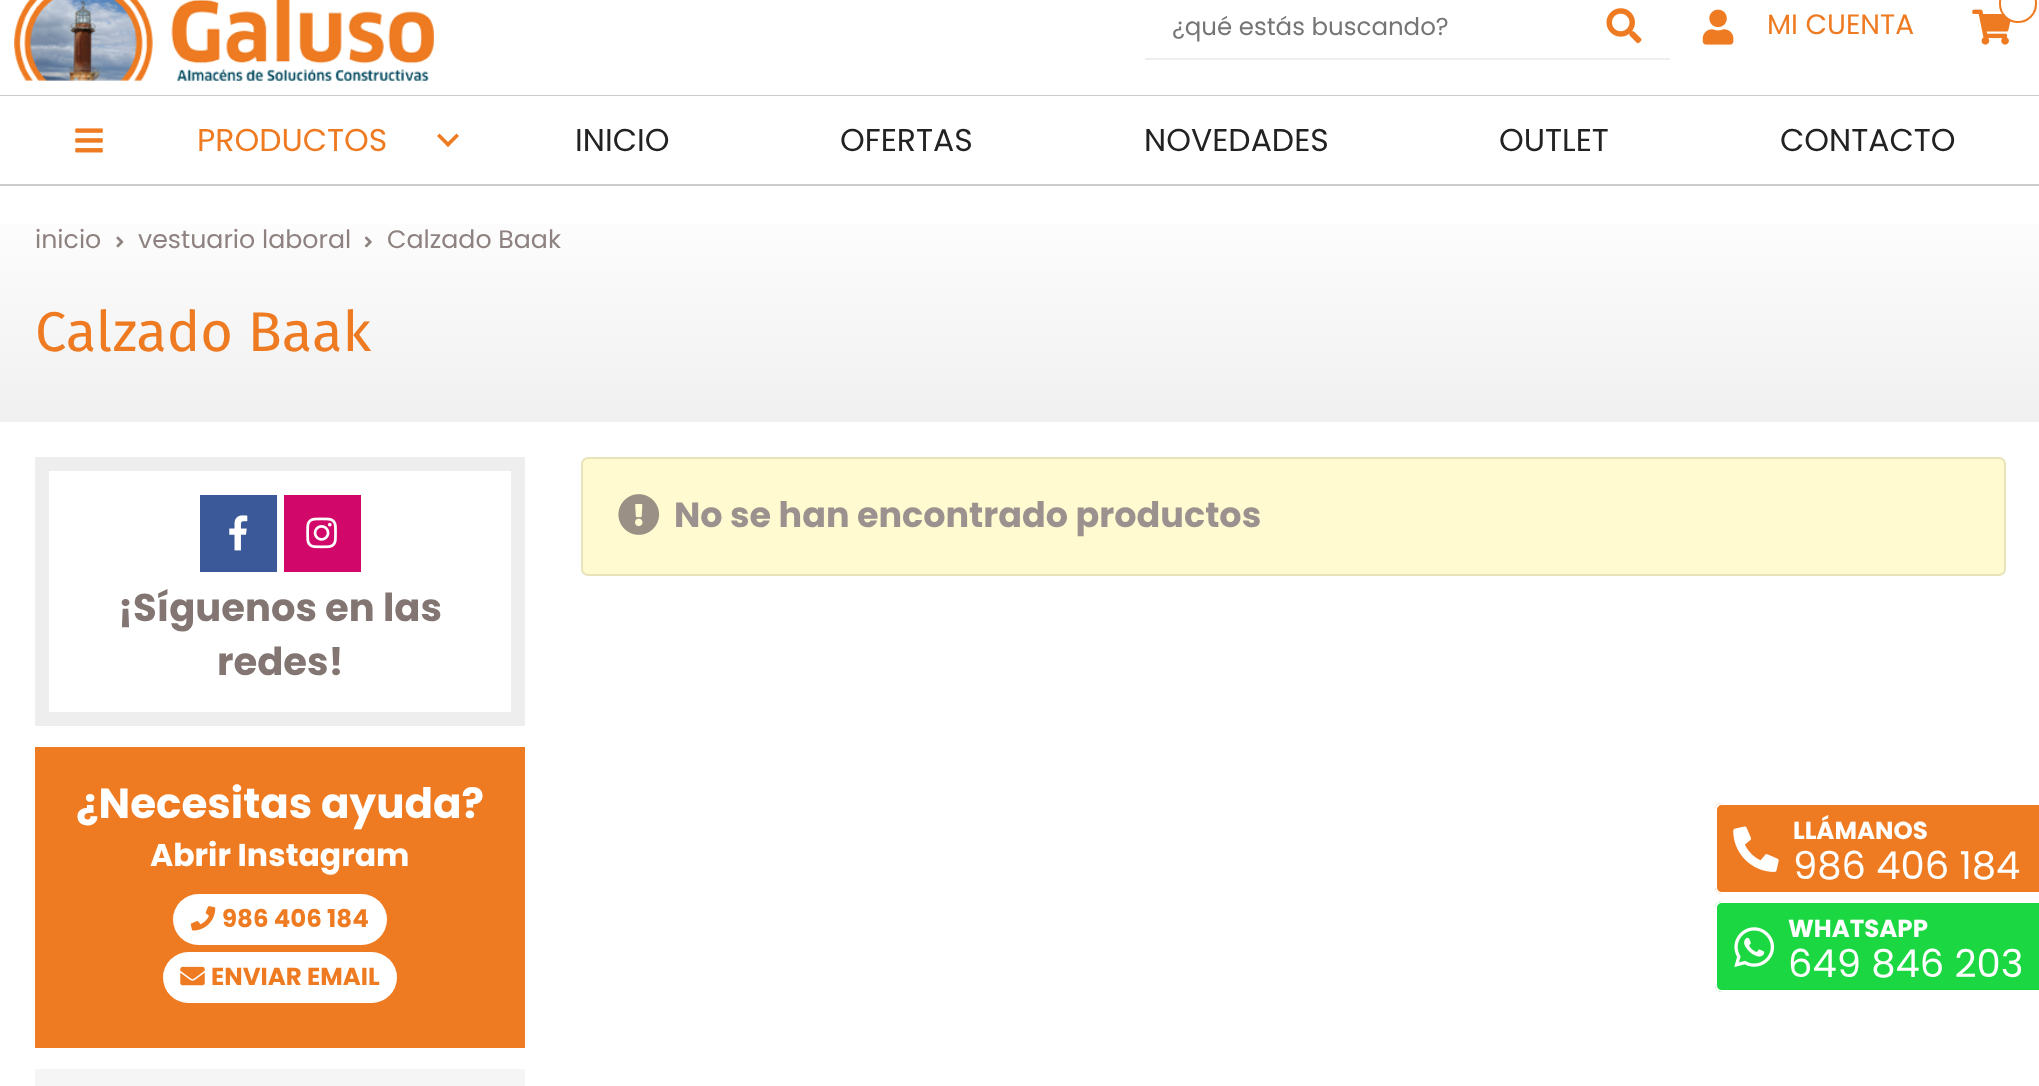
<?xml version="1.0" encoding="UTF-8"?>
<svg xmlns="http://www.w3.org/2000/svg" width="2039" height="1086">
    <defs>
        <linearGradient id="g1" gradientUnits="userSpaceOnUse" x1="1020" y1="184" x2="1020" y2="422"><stop offset="0" stop-color="#FFFFFF"/><stop offset="1" stop-color="#F0F0F0"/></linearGradient>
        <linearGradient id="g2" gradientUnits="userSpaceOnUse" x1="280" y1="1069" x2="280" y2="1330"><stop offset="0" stop-color="#F5F5F5"/><stop offset="1" stop-color="#EEEEEE"/></linearGradient>
    </defs>
    <rect width="100%" height="100%" fill="#FFFFFF"/>
    <rect x="0" y="95" width="2039" height="1" fill="#CCCCCC"/>
    <rect x="1145" y="58" width="525" height="2" fill="#EEEEEE"/>
    <text x="1172" y="35" font-family="Poppins" font-size="24.5" fill="#757575">¿qué estás buscando?</text>
    <image x="1606" y="8" width="36" height="36" href="img_01.png"/>
    <image x="1702" y="9" width="32" height="36" href="img_02.png"/>
    <text x="1767" y="34" font-family="Poppins" font-size="28" fill="#EE7B22">MI CUENTA</text>
    <image x="1972" y="9" width="39" height="36" href="img_03.png"/>
    <rect x="2000" y="-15" width="36" height="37" rx="18" fill="#FFFFFF" stroke="#EE7B22" stroke-width="2"/>
    <image x="14" y="0" width="420" height="81" href="img_04.png"/>
    <path d="M 1722 803 H 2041 V 894 H 1722 C 1718 894 1715 891 1715 887 V 810 C 1715 806 1718 803 1722 803 Z" fill="#EE7B22"/>
    <path d="M 1722 803 H 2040 V 894 H 1722 C 1718 894 1715 891 1715 887 V 810 C 1715 806 1718 803 1722 803 Z M 1722 805 H 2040 V 892 H 1722 C 1719 892 1717 890 1717 887 V 810 C 1717 807 1719 805 1722 805 Z" fill="#FFFFFF" fill-rule="evenodd"/>
    <image x="1733" y="826" width="46" height="46" href="img_05.png"/>
    <text x="1793" y="839" font-family="Poppins" font-size="24.5" font-weight="700" fill="#FFFFFF">LLÁMANOS</text>
    <text x="1793" y="879" font-family="Poppins" font-size="38.5" fill="#FFFFFF">986 406 184</text>
    <path d="M 1722 901 H 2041 V 992 H 1722 C 1718 992 1715 989 1715 985 V 908 C 1715 904 1718 901 1722 901 Z" fill="#1BD741"/>
    <path d="M 1722 901 H 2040 V 992 H 1722 C 1718 992 1715 989 1715 985 V 908 C 1715 904 1718 901 1722 901 Z M 1722 903 H 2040 V 990 H 1722 C 1719 990 1717 988 1717 985 V 908 C 1717 905 1719 903 1722 903 Z" fill="#FFFFFF" fill-rule="evenodd"/>
    <image x="1734" y="927" width="41" height="40" href="img_06.png"/>
    <text x="1788" y="937" font-family="Poppins" font-size="24.5" font-weight="700" fill="#FFFFFF">WHATSAPP</text>
    <text x="1788" y="977" font-family="Poppins" font-size="38.5" fill="#FFFFFF">649 846 203</text>
    <path d="M 0 184 V 186 H 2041 V 98 H 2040 V 184 Z" fill="#CCCCCC"/>
    <image x="75" y="128" width="28" height="25" href="img_07.png"/>
    <text x="197" y="151" font-family="Poppins" font-size="31.5" fill="#EE7B22">PRODUCTOS</text>
    <path d="M 439.5 133.5 L 450.5 144.5 L 448 147 L 437 136 Z" fill="#EE7B22"/>
    <path d="M 445.5 144.5 L 456.5 133.5 L 459 136 L 448 147 Z" fill="#EE7B22"/>
    <text x="575" y="151" font-family="Poppins" font-size="31.5" fill="#222222">INICIO</text>
    <text x="840" y="151" font-family="Poppins" font-size="31.5" fill="#222222">OFERTAS</text>
    <text x="1144" y="151" font-family="Poppins" font-size="31.5" fill="#222222">NOVEDADES</text>
    <text x="1499" y="151" font-family="Poppins" font-size="31.5" fill="#222222">OUTLET</text>
    <text x="1780" y="151" font-family="Poppins" font-size="31.5" fill="#222222">CONTACTO</text>
    <rect x="0" y="224" width="2039" height="198" fill="url(#g1)"/>
    <text x="35" y="248" font-family="Poppins" font-size="25.25" fill="#8E8280">inicio</text>
    <image x="116" y="236" width="8" height="12" href="img_08.png"/>
    <text x="138" y="248" font-family="Poppins" font-size="25.25" fill="#8E8280">vestuario laboral</text>
    <image x="364" y="236" width="8" height="12" href="img_09.png"/>
    <text x="387" y="248" font-family="Poppins" font-size="25.25" fill="#8E8280">Calzado Baak</text>
    <text x="35" y="351" font-family="Fira Sans" font-size="56" fill="#EE7B22">Calzado Baak</text>
    <rect x="582" y="458" width="1423" height="117" rx="6" fill="#FFFAD0" stroke="#E8E3B9" stroke-width="2"/>
    <image x="618" y="494" width="42" height="41" href="img_10.png"/>
    <text x="674" y="527" font-family="Poppins" font-size="35" font-weight="700" fill="#9B918E">No se han encontrado productos</text>
    <rect x="42" y="464" width="476" height="255" fill="none" stroke="#EEEEEE" stroke-width="14"/>
    <rect x="200" y="495" width="77" height="77" fill="#3B5998"/>
    <image x="229" y="515" width="19" height="36" href="img_11.png"/>
    <rect x="284" y="495" width="77" height="77" fill="#D10869"/>
    <image x="306" y="517" width="31" height="32" href="img_12.png"/>
    <text x="118" y="621" font-family="Poppins" font-size="38.5" font-weight="700" fill="#827572">¡Síguenos en las</text>
    <text x="217" y="675" font-family="Poppins" font-size="38.5" font-weight="700" fill="#827572">redes!</text>
    <rect x="35" y="747" width="490" height="301" fill="#EE7B22"/>
    <text x="76" y="818" font-family="Poppins" font-size="42" font-weight="700" fill="#FFFFFF">¿Necesitas ayuda?</text>
    <text x="150" y="866" font-family="Poppins" font-size="31.5" font-weight="700" fill="#FFFFFF">Abrir Instagram</text>
    <rect x="173" y="894" width="214" height="51" rx="25.5" fill="#FFFFFF"/>
    <image x="190" y="906" width="26" height="25" href="img_13.png"/>
    <text x="222" y="927" font-family="Poppins" font-size="24.5" font-weight="700" fill="#EE7B22">986 406 184</text>
    <rect x="163" y="952" width="234" height="51" rx="25.5" fill="#FFFFFF"/>
    <image x="180" y="966" width="25" height="20" href="img_14.png"/>
    <text x="211" y="985" font-family="Poppins" font-size="24.5" font-weight="700" fill="#EE7B22">ENVIAR EMAIL</text>
    <rect x="35" y="1069" width="490" height="17" fill="url(#g2)"/>
</svg>
